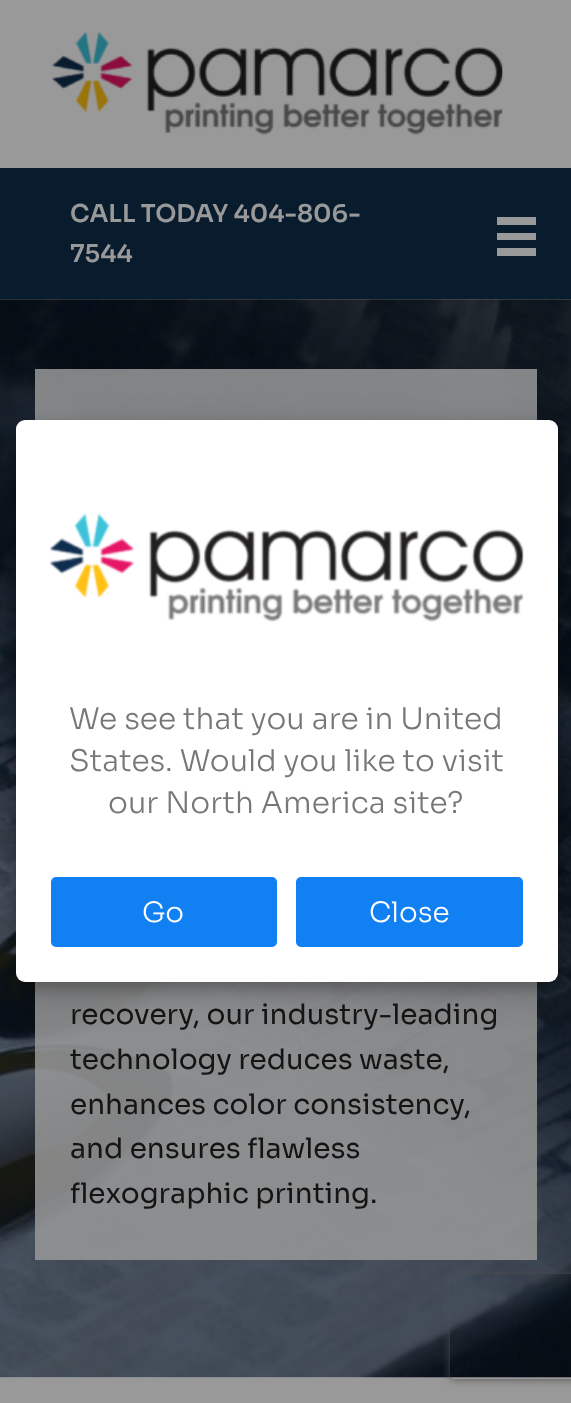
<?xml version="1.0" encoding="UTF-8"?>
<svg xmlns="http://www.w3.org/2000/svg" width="571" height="1403">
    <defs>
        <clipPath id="clip1"><path d="M 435 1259 H 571 V 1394 H 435 Z M 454 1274 H 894 C 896 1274 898 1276 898 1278 V 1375 C 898 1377 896 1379 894 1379 H 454 C 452 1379 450 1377 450 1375 V 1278 C 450 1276 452 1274 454 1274 Z" clip-rule="evenodd"/></clipPath>
        <filter id="blur1" x="-50%" y="-200%" width="200%" height="500%"><feGaussianBlur stdDeviation="4.5"/></filter>
        <filter id="blur2" x="-50%" y="-200%" width="200%" height="500%"><feGaussianBlur stdDeviation="17.5"/></filter>
        <filter id="blur3" x="-50%" y="-200%" width="200%" height="500%"><feGaussianBlur stdDeviation="7"/></filter>
    </defs>
    <rect width="100%" height="100%" fill="#999999"/>
    <image x="52" y="31" width="451" height="104" href="img_01.png"/>
    <rect x="0" y="168" width="571" height="131" fill="#091C2E"/>
    <text font-family="Sora" font-size="24.5" font-weight="600" fill="#999999">
        <tspan x="70" y="222">CALL TODAY 404-806-</tspan>
        <tspan x="70" y="262">7544</tspan>
    </text>
    <rect x="497" y="217" width="39" height="8" fill="#999999"/>
    <rect x="497" y="233" width="39" height="7" fill="#999999"/>
    <rect x="497" y="248" width="39" height="8" fill="#999999"/>
    <image x="0" y="299" width="571" height="1079" href="img_02.png"/>
    <g clip-path="url(#clip1)">
        <rect x="450" y="1274" width="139" height="105" rx="4" fill="#4D4D4D" filter="url(#blur1)"/>
    </g>
    <rect x="35" y="369" width="502" height="891" fill="#999999" fill-opacity="0.85"/>
    <text font-family="Sora" font-size="28" fill="#141414">
        <tspan x="70" y="1024">recovery, our industry-leading</tspan>
        <tspan x="70" y="1069">technology reduces waste,</tspan>
        <tspan x="70" y="1114">enhances color consistency,</tspan>
        <tspan x="70" y="1158">and ensures flawless</tspan>
        <tspan x="70" y="1203">flexographic printing.</tspan>
    </text>
    <rect x="16" y="431" width="542" height="561" rx="9" fill="#000000" fill-opacity="0.19" filter="url(#blur2)"/>
    <rect x="16" y="427" width="542" height="562" rx="9" fill="#000000" fill-opacity="0.2" filter="url(#blur3)"/>
    <rect x="16" y="420" width="542" height="562" rx="9" fill="#FFFFFF"/>
    <image x="50" y="513" width="474" height="109" href="img_03.png"/>
    <text font-family="Sora" font-size="29.75" font-weight="300" fill="#777777">
        <tspan x="69" y="729">We see that you are in United</tspan>
        <tspan x="69" y="771">States. Would you like to visit</tspan>
    </text>
    <text x="108" y="813" font-family="Sora" font-size="29.75" font-weight="300" fill="#777777">our North America site?</text>
    <rect x="51" y="877" width="226" height="70" rx="5" fill="#1080F2"/>
    <text x="142" y="922" font-family="Sora" font-size="28" font-weight="300" fill="#FFFFFF">Go</text>
    <rect x="296" y="877" width="227" height="70" rx="5" fill="#1080F2"/>
    <text x="369" y="922" font-family="Sora" font-size="28" font-weight="300" fill="#FFFFFF">Close</text>
</svg>
